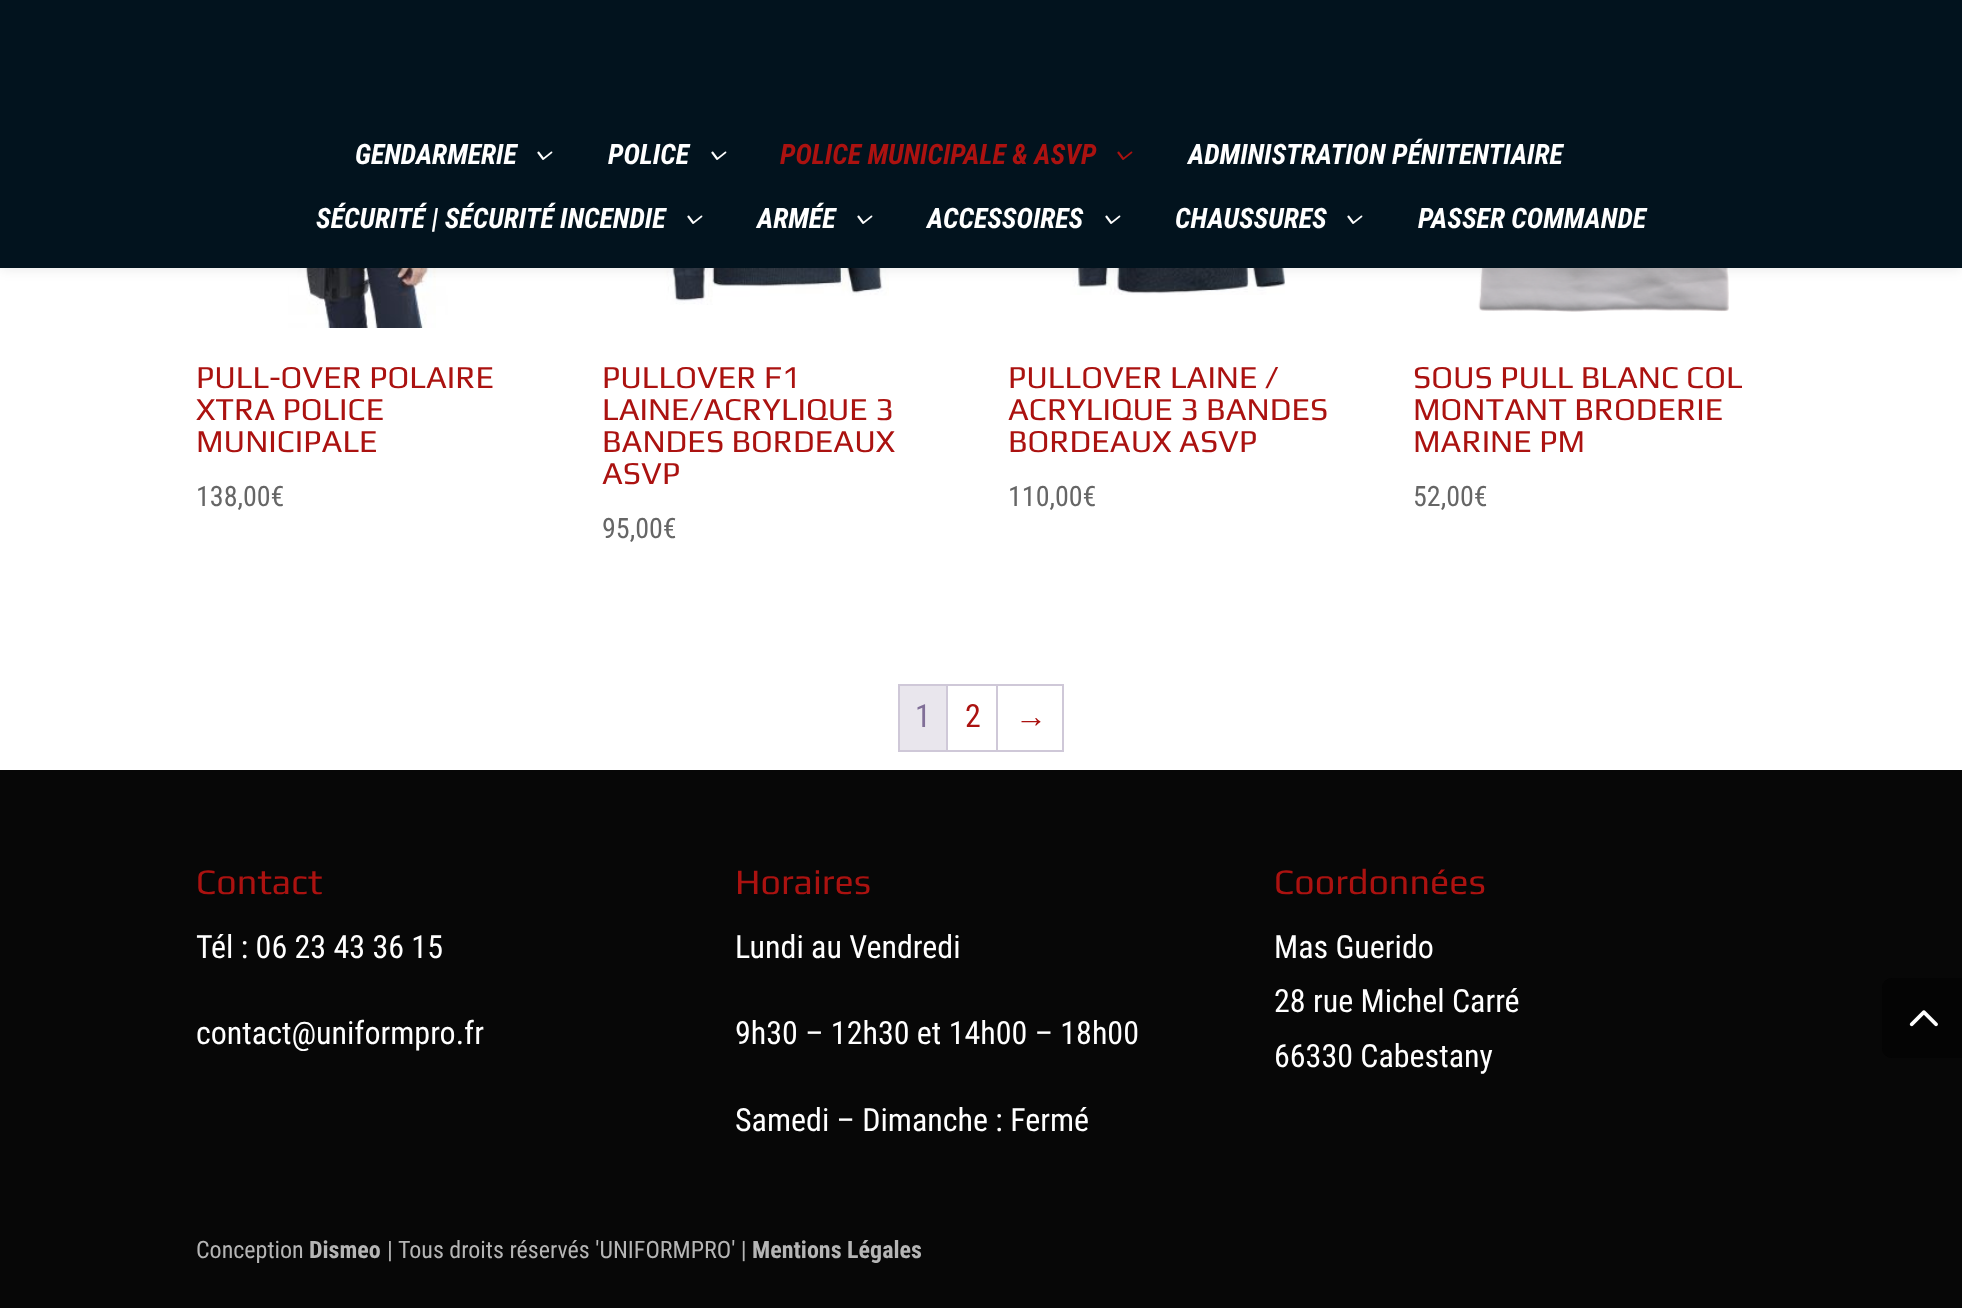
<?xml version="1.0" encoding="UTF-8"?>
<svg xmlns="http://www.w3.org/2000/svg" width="1962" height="1308">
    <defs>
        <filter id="blur1" x="-50%" y="-200%" width="200%" height="500%"><feGaussianBlur stdDeviation="7"/></filter>
    </defs>
    <rect width="100%" height="100%" fill="#FFFFFF"/>
    <image x="288" y="268" width="160" height="60" href="img_03.png"/>
    <image x="664" y="268" width="225" height="37" href="img_04.png"/>
    <image x="1070" y="268" width="216" height="27" href="img_05.png"/>
    <image x="1478" y="268" width="251" height="44" href="img_06.png"/>
    <rect x="0" y="0" width="1962" height="268" fill="#000000" fill-opacity="0.1" filter="url(#blur1)"/>
    <rect x="0" y="0" width="1962" height="268" fill="#02131E"/>
    <text x="355" y="164" font-family="Roboto Condensed" font-size="28" font-weight="700" font-style="italic" fill="#FFFFFF">GENDARMERIE</text>
    <image x="537" y="151" width="16" height="9" href="img_01.png"/>
    <text x="608" y="164" font-family="Roboto Condensed" font-size="28" font-weight="700" font-style="italic" fill="#FFFFFF">POLICE</text>
    <image x="711" y="151" width="16" height="9" href="img_01.png"/>
    <text x="780" y="164" font-family="Roboto Condensed" font-size="28" font-weight="700" font-style="italic" fill="#AB1210">POLICE MUNICIPALE &amp; ASVP</text>
    <image x="1117" y="151" width="16" height="9" href="img_02.png"/>
    <text x="1188" y="164" font-family="Roboto Condensed" font-size="28" font-weight="700" font-style="italic" fill="#FFFFFF">ADMINISTRATION PÉNITENTIAIRE</text>
    <text x="316" y="228" font-family="Roboto Condensed" font-size="28" font-weight="700" font-style="italic" fill="#FFFFFF">SÉCURITÉ | SÉCURITÉ INCENDIE</text>
    <image x="687" y="215" width="16" height="9" href="img_01.png"/>
    <text x="757" y="228" font-family="Roboto Condensed" font-size="28" font-weight="700" font-style="italic" fill="#FFFFFF">ARMÉE</text>
    <image x="857" y="215" width="16" height="9" href="img_01.png"/>
    <text x="927" y="228" font-family="Roboto Condensed" font-size="28" font-weight="700" font-style="italic" fill="#FFFFFF">ACCESSOIRES</text>
    <image x="1105" y="215" width="16" height="9" href="img_01.png"/>
    <text x="1175" y="228" font-family="Roboto Condensed" font-size="28" font-weight="700" font-style="italic" fill="#FFFFFF">CHAUSSURES</text>
    <image x="1347" y="215" width="16" height="9" href="img_01.png"/>
    <text x="1418" y="228" font-family="Roboto Condensed" font-size="28" font-weight="700" font-style="italic" fill="#FFFFFF">PASSER COMMANDE</text>
    <text font-family="Play" font-size="32" fill="#AB1210">
        <tspan x="196" y="388">PULL-OVER POLAIRE</tspan>
        <tspan x="196" y="420">XTRA POLICE</tspan>
        <tspan x="196" y="452">MUNICIPALE</tspan>
    </text>
    <text x="196" y="506" font-family="Roboto Condensed" font-size="28" fill="#666666">138,00€</text>
    <text font-family="Play" font-size="32" fill="#AB1210">
        <tspan x="602" y="388">PULLOVER F1</tspan>
        <tspan x="602" y="420">LAINE/ACRYLIQUE 3</tspan>
        <tspan x="602" y="452">BANDES BORDEAUX</tspan>
        <tspan x="602" y="484">ASVP</tspan>
    </text>
    <text x="602" y="538" font-family="Roboto Condensed" font-size="28" fill="#666666">95,00€</text>
    <text font-family="Play" font-size="32" fill="#AB1210">
        <tspan x="1008" y="388">PULLOVER LAINE /</tspan>
        <tspan x="1008" y="420">ACRYLIQUE 3 BANDES</tspan>
        <tspan x="1008" y="452">BORDEAUX ASVP</tspan>
    </text>
    <text x="1008" y="506" font-family="Roboto Condensed" font-size="28" fill="#666666">110,00€</text>
    <text font-family="Play" font-size="32" fill="#AB1210">
        <tspan x="1413" y="388">SOUS PULL BLANC COL</tspan>
        <tspan x="1413" y="420">MONTANT BRODERIE</tspan>
        <tspan x="1413" y="452">MARINE PM</tspan>
    </text>
    <text x="1413" y="506" font-family="Roboto Condensed" font-size="28" fill="#666666">52,00€</text>
    <rect x="898" y="684" width="166" height="2" fill="#CFC8D8"/>
    <rect x="898" y="750" width="166" height="2" fill="#CFC8D8"/>
    <rect x="898" y="684" width="2" height="68" fill="#CFC8D8"/>
    <rect x="946" y="686" width="2" height="64" fill="#CFC8D8"/>
    <rect x="900" y="686" width="46" height="64" fill="#E9E6ED"/>
    <text x="915" y="727" font-family="Roboto Condensed" font-size="32" fill="#816F98">1</text>
    <rect x="996" y="686" width="2" height="64" fill="#CFC8D8"/>
    <text x="965" y="727" font-family="Roboto Condensed" font-size="32" fill="#AB1210">2</text>
    <rect x="1062" y="686" width="2" height="64" fill="#CFC8D8"/>
    <text x="1015" y="727" font-family="Liberation Sans" font-size="32" fill="#AB1210">→</text>
    <rect x="0" y="770" width="1962" height="538" fill="#070707"/>
    <text x="196" y="894" font-family="Play" font-size="36" fill="#AB1210">Contact</text>
    <text x="196" y="958" font-family="Roboto Condensed" font-size="32" fill="#FFFFFF">Tél : 06 23 43 36 15</text>
    <text x="196" y="1044" font-family="Roboto Condensed" font-size="32" fill="#FFFFFF">contact@uniformpro.fr</text>
    <text x="735" y="894" font-family="Play" font-size="36" fill="#AB1210">Horaires</text>
    <text x="735" y="958" font-family="Roboto Condensed" font-size="32" fill="#FFFFFF">Lundi au Vendredi</text>
    <text x="735" y="1044" font-family="Roboto Condensed" font-size="32" fill="#FFFFFF">9h30 – 12h30 et 14h00 – 18h00</text>
    <text x="735" y="1131" font-family="Roboto Condensed" font-size="32" fill="#FFFFFF">Samedi – Dimanche : Fermé</text>
    <text x="1274" y="894" font-family="Play" font-size="36" fill="#AB1210">Coordonnées</text>
    <text font-family="Roboto Condensed" font-size="32" fill="#FFFFFF">
        <tspan x="1274" y="958">Mas Guerido</tspan>
        <tspan x="1274" y="1012">28 rue Michel Carré</tspan>
        <tspan x="1274" y="1067">66330 Cabestany</tspan>
    </text>
    <text x="196" y="1258" font-family="Roboto Condensed" font-size="24" fill="#B5B5B5">Conception</text>
    <text x="309" y="1258" font-family="Roboto Condensed" font-size="24" font-weight="700" fill="#B5B5B5">Dismeo</text>
    <text x="387" y="1258" font-family="Roboto Condensed" font-size="24" fill="#B5B5B5">| Tous droits réservés 'UNIFORMPRO' |</text>
    <text x="752" y="1258" font-family="Roboto Condensed" font-size="24" font-weight="700" fill="#B5B5B5">Mentions Légales</text>
    <path d="M 1892 978 H 1962 V 1058 H 1892 C 1886.5 1058 1882 1053.5 1882 1048 V 988 C 1882 982.5 1886.5 978 1892 978 Z" fill="#040404"/>
    <image x="1909" y="1010" width="29" height="17" href="img_07.png"/>
</svg>
